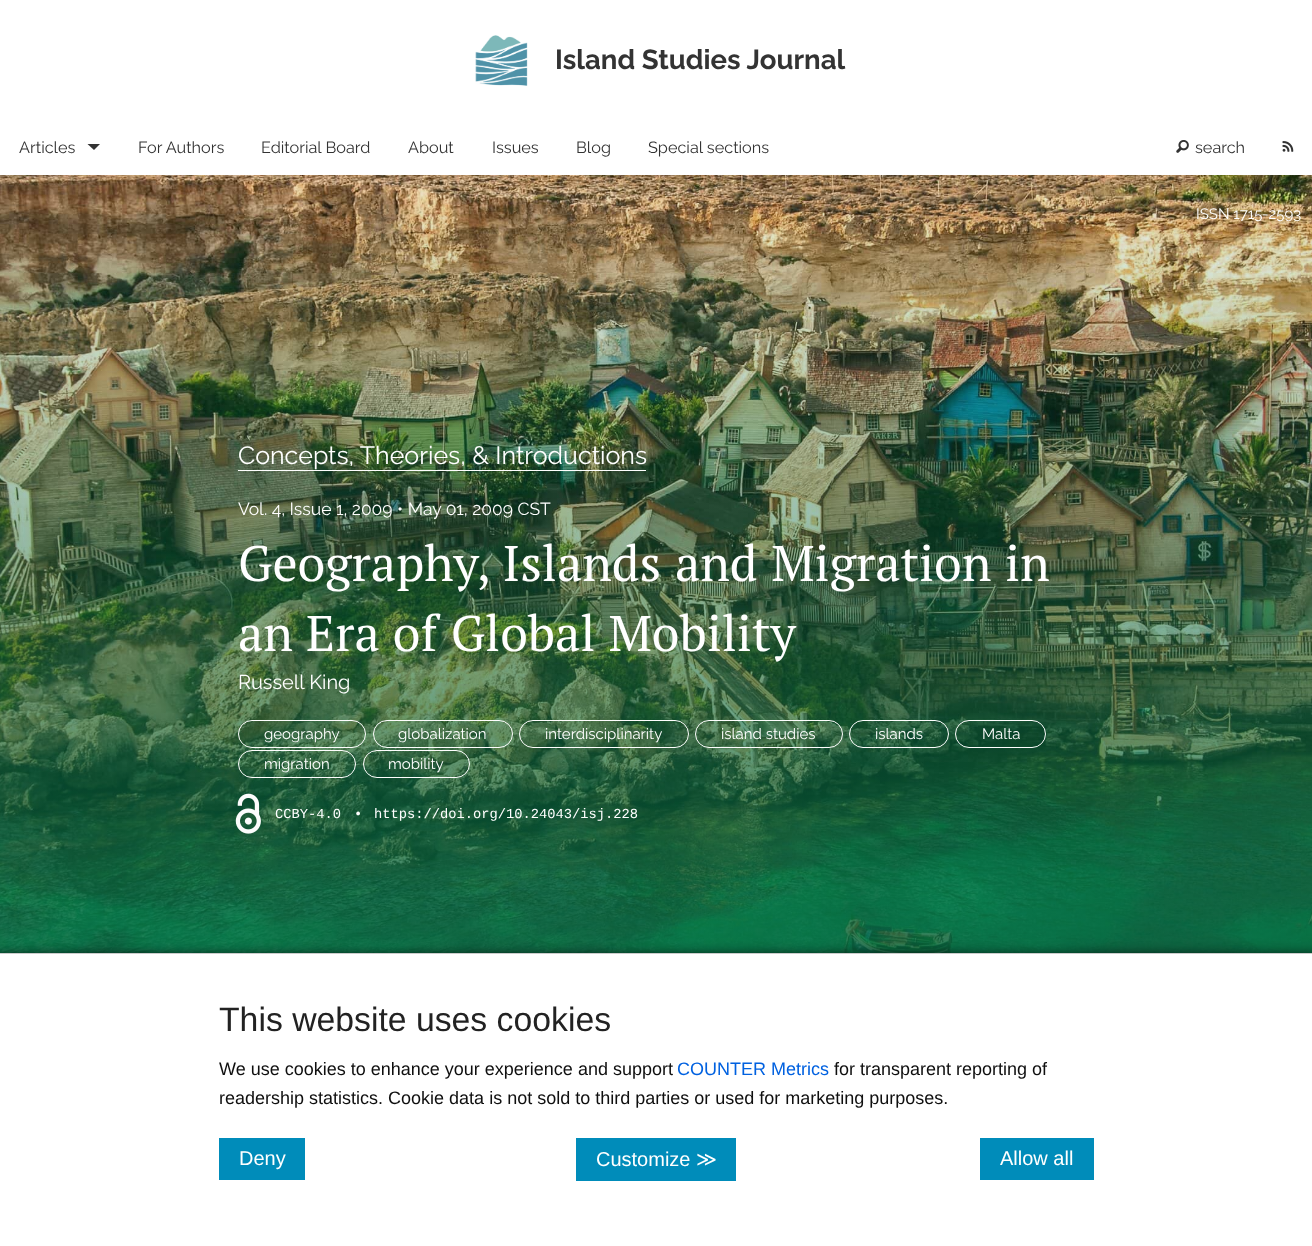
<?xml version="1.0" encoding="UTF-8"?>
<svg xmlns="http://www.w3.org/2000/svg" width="1312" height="1246">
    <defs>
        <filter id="blur1" x="-50%" y="-200%" width="200%" height="500%"><feGaussianBlur stdDeviation="7"/></filter>
    </defs>
    <rect width="100%" height="100%" fill="#FFFFFF"/>
    <image x="475" y="35" width="53" height="51" href="img_01.png"/>
    <text x="555" y="69" font-family="Raleway" font-size="27.5" font-weight="700" fill="#333333">Island Studies Journal</text>
    <text x="19" y="153" font-family="Raleway" font-size="16.25" fill="#333333">Articles</text>
    <path d="M 87.5 144 H 100 L 94 150 Z" fill="#333333"/>
    <text x="138" y="153" font-family="Raleway" font-size="16.25" fill="#333333">For Authors</text>
    <text x="261" y="153" font-family="Raleway" font-size="16.25" fill="#333333">Editorial Board</text>
    <text x="408" y="153" font-family="Raleway" font-size="16.25" fill="#333333">About</text>
    <text x="492" y="153" font-family="Raleway" font-size="16.25" fill="#333333">Issues</text>
    <text x="576" y="153" font-family="Raleway" font-size="16.25" fill="#333333">Blog</text>
    <text x="648" y="153" font-family="Raleway" font-size="16.25" fill="#333333">Special sections</text>
    <image x="1176" y="140" width="13" height="13" href="img_02.png"/>
    <text x="1195" y="153" font-family="Raleway" font-size="16.25" fill="#333333">search</text>
    <image x="1282" y="141" width="12" height="11" href="img_03.png"/>
    <image x="0" y="175" width="1312" height="778" href="img_04.png"/>
    <text x="1196" y="219" font-family="Raleway" font-size="15" fill="#FFFFFF">ISSN 1715-2593</text>
    <text x="238" y="464" font-family="Raleway" font-size="25" fill="#FFFFFF">Concepts, Theories, &amp; Introductions</text>
    <rect x="238" y="470" width="408" height="1" fill="#FFFFFF"/>
    <text x="238" y="515" font-family="Raleway" font-size="17.5" fill="#FFFFFF">Vol. 4, Issue 1, 2009 • May 01, 2009 CST</text>
    <text font-family="PT Serif" font-size="50" fill="#FFFFFF">
        <tspan x="238" y="581" word-spacing="1.5">Geography, Islands and Migration in</tspan>
        <tspan x="238" y="651" word-spacing="1">an Era of Global Mobility</tspan>
    </text>
    <text x="238" y="689" font-family="Raleway" font-size="20" fill="#FFFFFF">Russell King</text>
    <rect x="238.5" y="720.5" width="127" height="27" rx="13.5" fill="none" stroke="#FFFFFF"/>
    <text x="264" y="739" font-family="Raleway" font-size="15" fill="#FFFFFF">geography</text>
    <rect x="373.5" y="720.5" width="139" height="27" rx="13.5" fill="none" stroke="#FFFFFF"/>
    <text x="398" y="739" font-family="Raleway" font-size="15" fill="#FFFFFF">globalization</text>
    <rect x="519.5" y="720.5" width="169" height="27" rx="13.5" fill="none" stroke="#FFFFFF"/>
    <text x="545" y="739" font-family="Raleway" font-size="15" fill="#FFFFFF">interdisciplinarity</text>
    <rect x="695.5" y="720.5" width="147" height="27" rx="13.5" fill="none" stroke="#FFFFFF"/>
    <text x="721" y="739" font-family="Raleway" font-size="15" fill="#FFFFFF">island studies</text>
    <rect x="849.5" y="720.5" width="99" height="27" rx="13.5" fill="none" stroke="#FFFFFF"/>
    <text x="875" y="739" font-family="Raleway" font-size="15" fill="#FFFFFF">islands</text>
    <rect x="955.5" y="720.5" width="90" height="27" rx="13.5" fill="none" stroke="#FFFFFF"/>
    <text x="982" y="739" font-family="Raleway" font-size="15" fill="#FFFFFF">Malta</text>
    <rect x="238.5" y="750.5" width="117" height="27" rx="13.5" fill="none" stroke="#FFFFFF"/>
    <text x="264" y="769" font-family="Raleway" font-size="15" fill="#FFFFFF">migration</text>
    <rect x="363.5" y="750.5" width="106" height="27" rx="13.5" fill="none" stroke="#FFFFFF"/>
    <text x="388" y="769" font-family="Raleway" font-size="15" fill="#FFFFFF">mobility</text>
    <image x="235" y="793" width="26" height="41" href="img_05.png"/>
    <text x="275" y="818" font-family="Liberation Mono" font-size="13.75" fill="#FFFFFF">CCBY-4.0</text>
    <text x="354" y="818" font-family="Liberation Mono" font-size="13.75" fill="#FFFFFF">•</text>
    <text x="374" y="818" font-family="Liberation Mono" font-size="13.75" fill="#FFFFFF">https://doi.org/10.24043/isj.228</text>
    <rect x="-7" y="956" width="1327" height="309" fill="#000000" filter="url(#blur1)"/>
    <rect x="0" y="954" width="1312" height="292" fill="#FFFFFF"/>
    <rect x="0" y="953" width="1312" height="1" fill="#CCCCCC"/>
    <text x="219" y="1031" font-family="Liberation Sans" font-size="33.75" fill="#222222">This website uses cookies</text>
    <text x="219" y="1075" font-family="Liberation Sans" font-size="18" fill="#0F0F0F">We use cookies to enhance your experience and support</text>
    <text x="677" y="1075" font-family="Liberation Sans" font-size="18" fill="#0061E0">COUNTER Metrics</text>
    <text x="834" y="1075" font-family="Liberation Sans" font-size="18" fill="#0F0F0F">for transparent reporting of</text>
    <text x="219" y="1104" font-family="Liberation Sans" font-size="18" fill="#0F0F0F">readership statistics. Cookie data is not sold to third parties or used for marketing purposes.</text>
    <rect x="219" y="1138" width="86" height="42" fill="#008CBA"/>
    <text x="239" y="1165" font-family="Liberation Sans" font-size="20" fill="#FFFFFF">Deny</text>
    <rect x="576" y="1138" width="160" height="43" fill="#008CBA"/>
    <text x="596" y="1166" font-family="Liberation Sans" font-size="20" fill="#FFFFFF">Customize</text>
    <text x="696" y="1166" font-family="DejaVu Sans" font-size="20" fill="#FFFFFF">≫</text>
    <rect x="980" y="1138" width="114" height="42" fill="#008CBA"/>
    <text x="1000" y="1165" font-family="Liberation Sans" font-size="20" fill="#FFFFFF">Allow all</text>
</svg>
